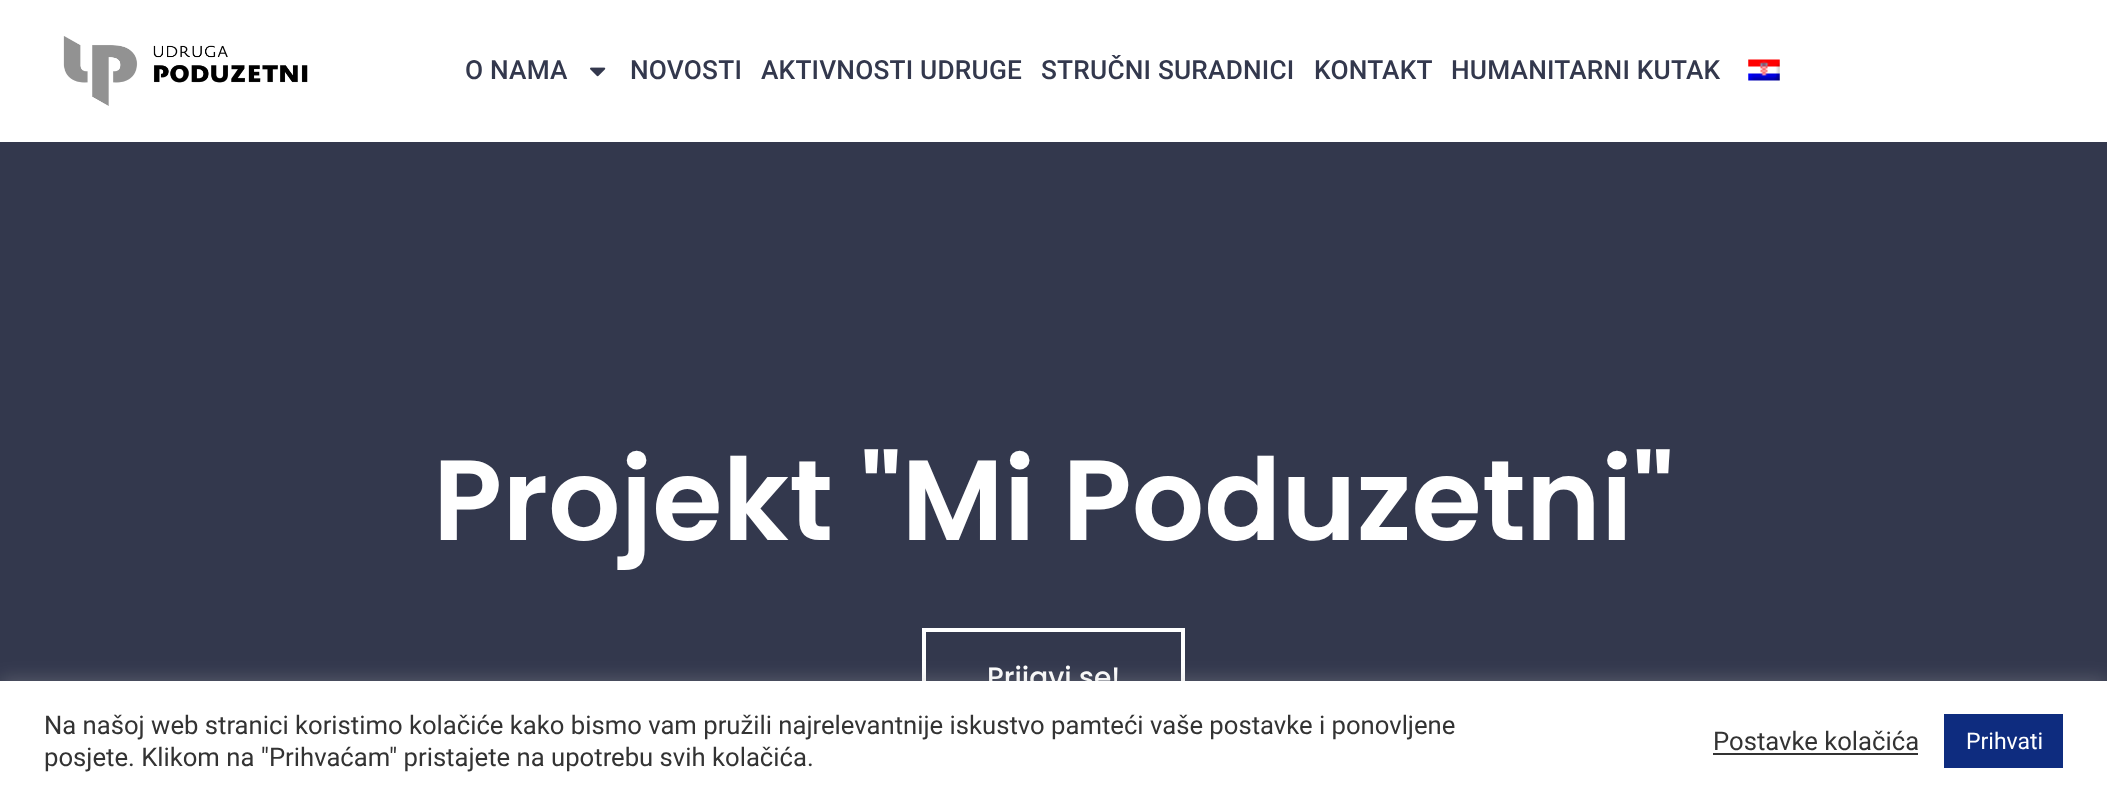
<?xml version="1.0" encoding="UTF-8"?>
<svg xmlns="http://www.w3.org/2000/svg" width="2107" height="800">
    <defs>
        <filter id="blur1" x="-50%" y="-200%" width="200%" height="500%"><feGaussianBlur stdDeviation="9"/></filter>
    </defs>
    <rect width="100%" height="100%" fill="#33384D"/>
    <rect x="0" y="0" width="2107" height="142" fill="#FFFFFF"/>
    <image x="63" y="36" width="245" height="70" href="img_01.png"/>
    <text x="465" y="79" font-family="Roboto" font-size="26.25" font-weight="500" letter-spacing="0.2" fill="#33384D">O NAMA</text>
    <image x="590" y="67" width="16" height="10" href="img_02.png"/>
    <text x="630" y="79" font-family="Roboto" font-size="26.25" font-weight="500" letter-spacing="0.2" fill="#33384D">NOVOSTI</text>
    <text x="761" y="79" font-family="Roboto" font-size="26.25" font-weight="500" letter-spacing="0.2" fill="#33384D">AKTIVNOSTI UDRUGE</text>
    <text x="1041" y="79" font-family="Roboto" font-size="26.25" font-weight="500" letter-spacing="0.2" fill="#33384D">STRUČNI SURADNICI</text>
    <text x="1314" y="79" font-family="Roboto" font-size="26.25" font-weight="500" letter-spacing="0.2" fill="#33384D">KONTAKT</text>
    <text x="1451" y="79" font-family="Roboto" font-size="26.25" font-weight="500" letter-spacing="0.2" fill="#33384D">HUMANITARNI KUTAK</text>
    <image x="1748" y="59" width="32" height="22" href="img_03.png"/>
    <text x="433" y="540" font-family="Poppins" font-size="113.75" font-weight="600" fill="#FFFFFF">Projekt "Mi Poduzetni"</text>
    <rect x="924" y="630" width="259" height="98" fill="none" stroke="#FFFFFF" stroke-width="4"/>
    <text x="987" y="687" font-family="Poppins" font-size="28" font-weight="500" fill="#FFFFFF">Prijavi se!</text>
    <rect x="0" y="679" width="2107" height="121" fill="#ACABAB" fill-opacity="0.3" filter="url(#blur1)"/>
    <rect x="0" y="681" width="2107" height="119" fill="#FFFFFF"/>
    <text font-family="Roboto" font-size="25.67" fill="#333333">
        <tspan x="44" y="734">Na našoj web stranici koristimo kolačiće kako bismo vam pružili najrelevantnije iskustvo pamteći vaše postavke i ponovljene</tspan>
        <tspan x="44" y="766">posjete. Klikom na "Prihvaćam" pristajete na upotrebu svih kolačića.</tspan>
    </text>
    <text x="1713" y="750" font-family="Roboto" font-size="25.67" fill="#333333">Postavke kolačića</text>
    <rect x="1713" y="753" width="205" height="2" fill="#333333"/>
    <rect x="1944" y="714" width="119" height="54" fill="#0E2C7F"/>
    <text x="1966" y="749" font-family="Roboto" font-size="23" fill="#FFFFFF">Prihvati</text>
</svg>
